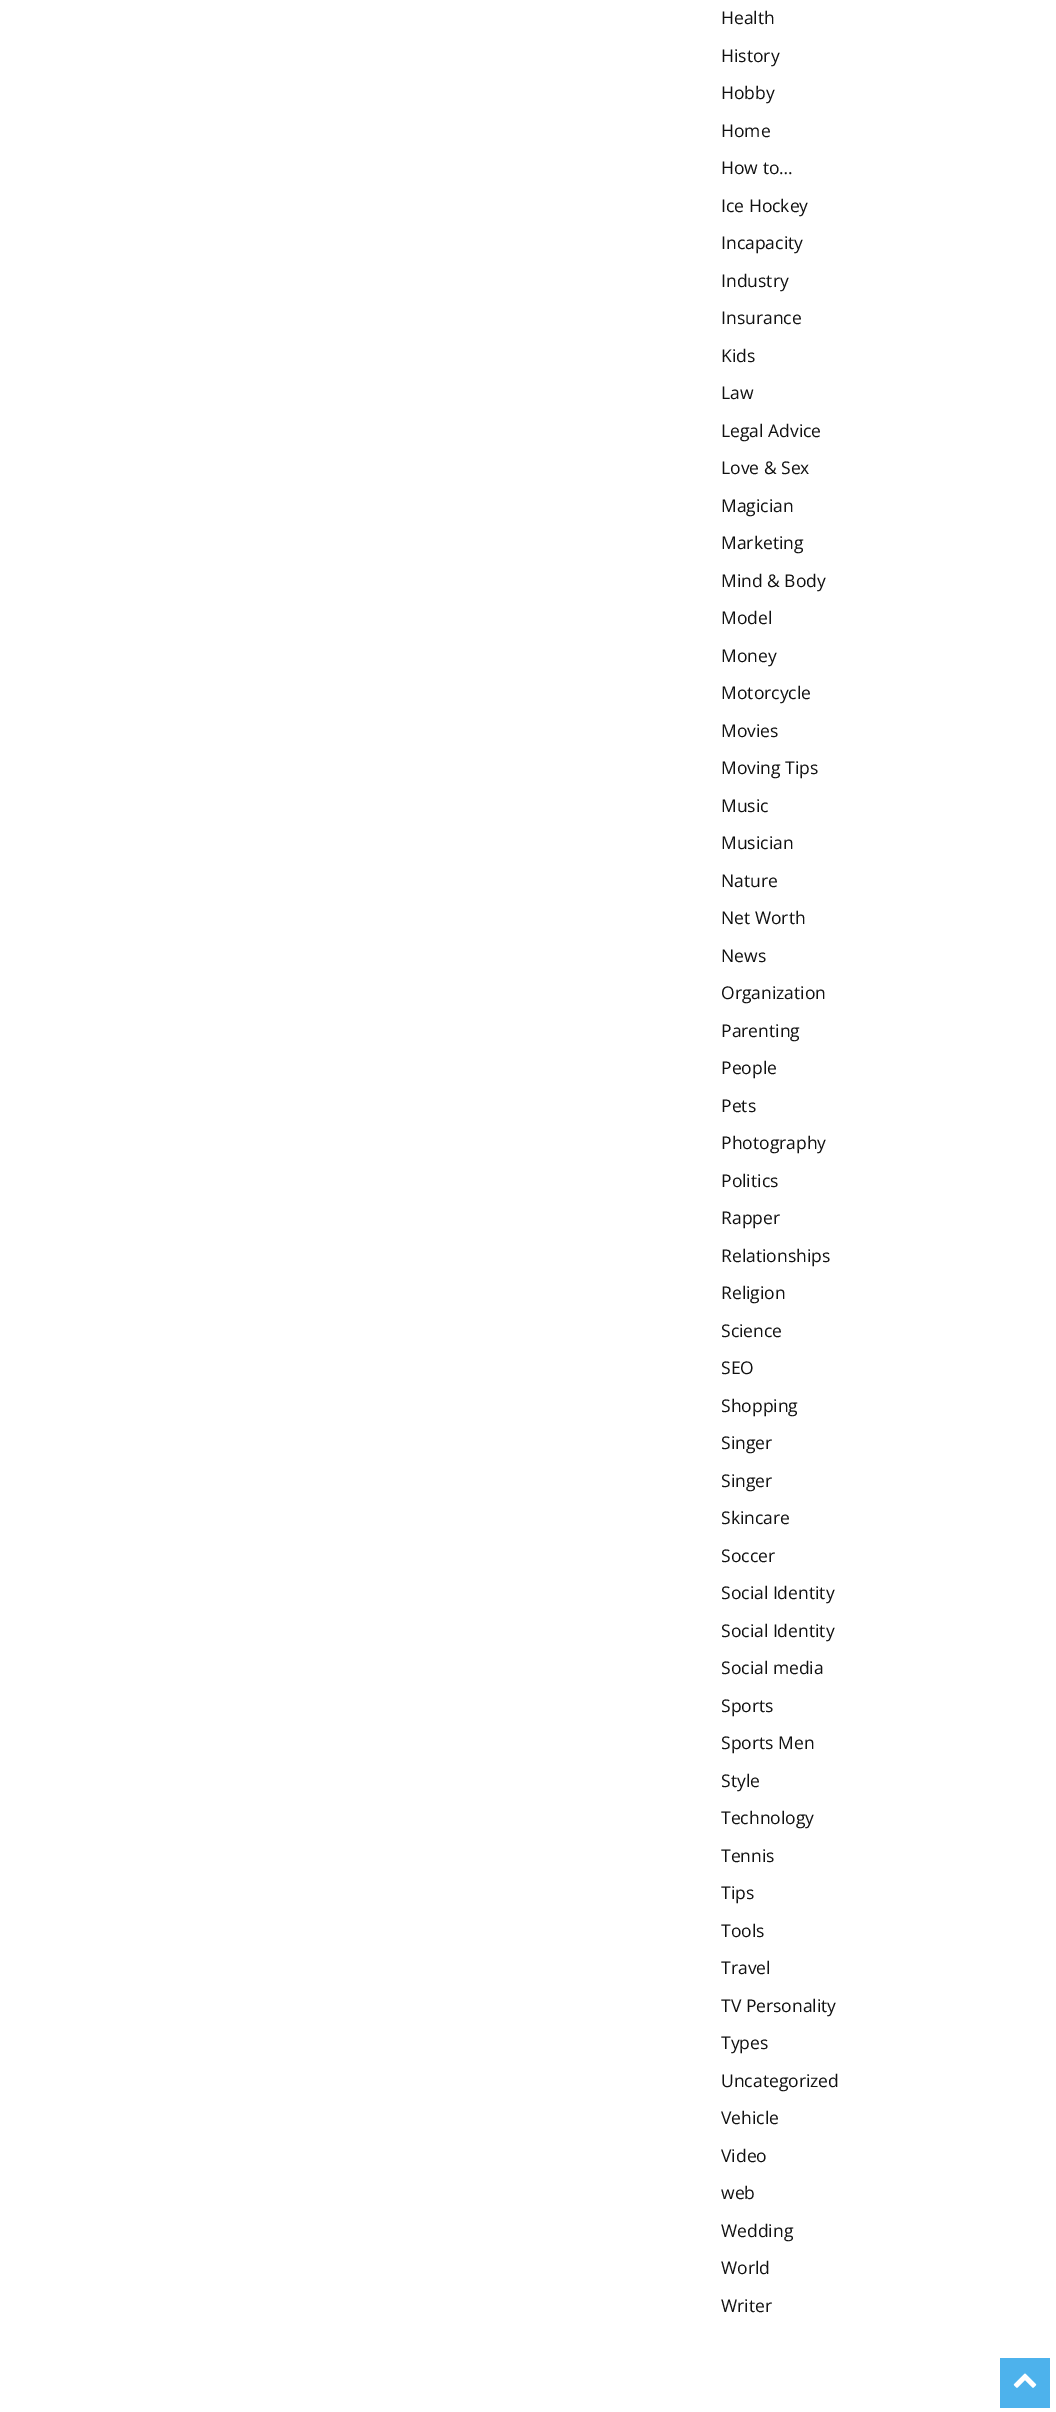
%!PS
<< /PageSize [1056 2412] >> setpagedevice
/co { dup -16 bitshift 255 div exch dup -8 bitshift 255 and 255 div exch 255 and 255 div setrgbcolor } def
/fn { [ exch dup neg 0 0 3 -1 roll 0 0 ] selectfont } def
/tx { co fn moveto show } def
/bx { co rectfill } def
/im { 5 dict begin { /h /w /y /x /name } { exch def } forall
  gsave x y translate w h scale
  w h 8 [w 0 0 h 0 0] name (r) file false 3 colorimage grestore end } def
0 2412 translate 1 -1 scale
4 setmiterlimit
0 0 1056 2412 16#FFFFFF bx
1000 2358 50 50 16#4DB2EC bx
(media/1.raw) 1013 2373 24 15 im
(Health) 721 24 /OpenSans-Regular 17.5 16#111111 tx
(History) 721 62 /OpenSans-Regular 17.5 16#111111 tx
(Hobby) 721 99 /OpenSans-Regular 17.5 16#111111 tx
(Home) 721 137 /OpenSans-Regular 17.5 16#111111 tx
(How to…) 721 174 /OpenSans-Regular 17.5 16#111111 tx
(Ice Hockey) 721 212 /OpenSans-Regular 17.5 16#111111 tx
(Incapacity) 721 249 /OpenSans-Regular 17.5 16#111111 tx
(Industry) 721 287 /OpenSans-Regular 17.5 16#111111 tx
(Insurance) 721 324 /OpenSans-Regular 17.5 16#111111 tx
(Kids) 721 362 /OpenSans-Regular 17.5 16#111111 tx
(Law) 721 399 /OpenSans-Regular 17.5 16#111111 tx
(Legal Advice) 721 437 /OpenSans-Regular 17.5 16#111111 tx
(Love & Sex) 721 474 /OpenSans-Regular 17.5 16#111111 tx
(Magician) 721 512 /OpenSans-Regular 17.5 16#111111 tx
(Marketing) 721 549 /OpenSans-Regular 17.5 16#111111 tx
(Mind & Body) 721 587 /OpenSans-Regular 17.5 16#111111 tx
(Model) 721 624 /OpenSans-Regular 17.5 16#111111 tx
(Money) 721 662 /OpenSans-Regular 17.5 16#111111 tx
(Motorcycle) 721 699 /OpenSans-Regular 17.5 16#111111 tx
(Movies) 721 737 /OpenSans-Regular 17.5 16#111111 tx
(Moving Tips) 721 774 /OpenSans-Regular 17.5 16#111111 tx
(Music) 721 812 /OpenSans-Regular 17.5 16#111111 tx
(Musician) 721 849 /OpenSans-Regular 17.5 16#111111 tx
(Nature) 721 887 /OpenSans-Regular 17.5 16#111111 tx
(Net Worth) 721 924 /OpenSans-Regular 17.5 16#111111 tx
(News) 721 962 /OpenSans-Regular 17.5 16#111111 tx
(Organization) 721 999 /OpenSans-Regular 17.5 16#111111 tx
(Parenting) 721 1037 /OpenSans-Regular 17.5 16#111111 tx
(People) 721 1074 /OpenSans-Regular 17.5 16#111111 tx
(Pets) 721 1112 /OpenSans-Regular 17.5 16#111111 tx
(Photography) 721 1149 /OpenSans-Regular 17.5 16#111111 tx
(Politics) 721 1187 /OpenSans-Regular 17.5 16#111111 tx
(Rapper) 721 1224 /OpenSans-Regular 17.5 16#111111 tx
(Relationships) 721 1262 /OpenSans-Regular 17.5 16#111111 tx
(Religion) 721 1299 /OpenSans-Regular 17.5 16#111111 tx
(Science) 721 1337 /OpenSans-Regular 17.5 16#111111 tx
(SEO) 721 1374 /OpenSans-Regular 17.5 16#111111 tx
(Shopping) 721 1412 /OpenSans-Regular 17.5 16#111111 tx
(Singer) 721 1449 /OpenSans-Regular 17.5 16#111111 tx
(Singer) 721 1487 /OpenSans-Regular 17.5 16#111111 tx
(Skincare) 721 1524 /OpenSans-Regular 17.5 16#111111 tx
(Soccer) 721 1562 /OpenSans-Regular 17.5 16#111111 tx
(Social Identity) 721 1599 /OpenSans-Regular 17.5 16#111111 tx
(Social Identity) 721 1637 /OpenSans-Regular 17.5 16#111111 tx
(Social media) 721 1674 /OpenSans-Regular 17.5 16#111111 tx
(Sports) 721 1712 /OpenSans-Regular 17.5 16#111111 tx
(Sports Men) 721 1749 /OpenSans-Regular 17.5 16#111111 tx
(Style) 721 1787 /OpenSans-Regular 17.5 16#111111 tx
(Technology) 721 1824 /OpenSans-Regular 17.5 16#111111 tx
(Tennis) 721 1862 /OpenSans-Regular 17.5 16#111111 tx
(Tips) 721 1899 /OpenSans-Regular 17.5 16#111111 tx
(Tools) 721 1937 /OpenSans-Regular 17.5 16#111111 tx
(Travel) 721 1974 /OpenSans-Regular 17.5 16#111111 tx
(TV Personality) 721 2012 /OpenSans-Regular 17.5 16#111111 tx
(Types) 721 2049 /OpenSans-Regular 17.5 16#111111 tx
(Uncategorized) 721 2087 /OpenSans-Regular 17.5 16#111111 tx
(Vehicle) 721 2124 /OpenSans-Regular 17.5 16#111111 tx
(Video) 721 2162 /OpenSans-Regular 17.5 16#111111 tx
(web) 721 2199 /OpenSans-Regular 17.5 16#111111 tx
(Wedding) 721 2237 /OpenSans-Regular 17.5 16#111111 tx
(World) 721 2274 /OpenSans-Regular 17.5 16#111111 tx
(Writer) 721 2312 /OpenSans-Regular 17.5 16#111111 tx
showpage
